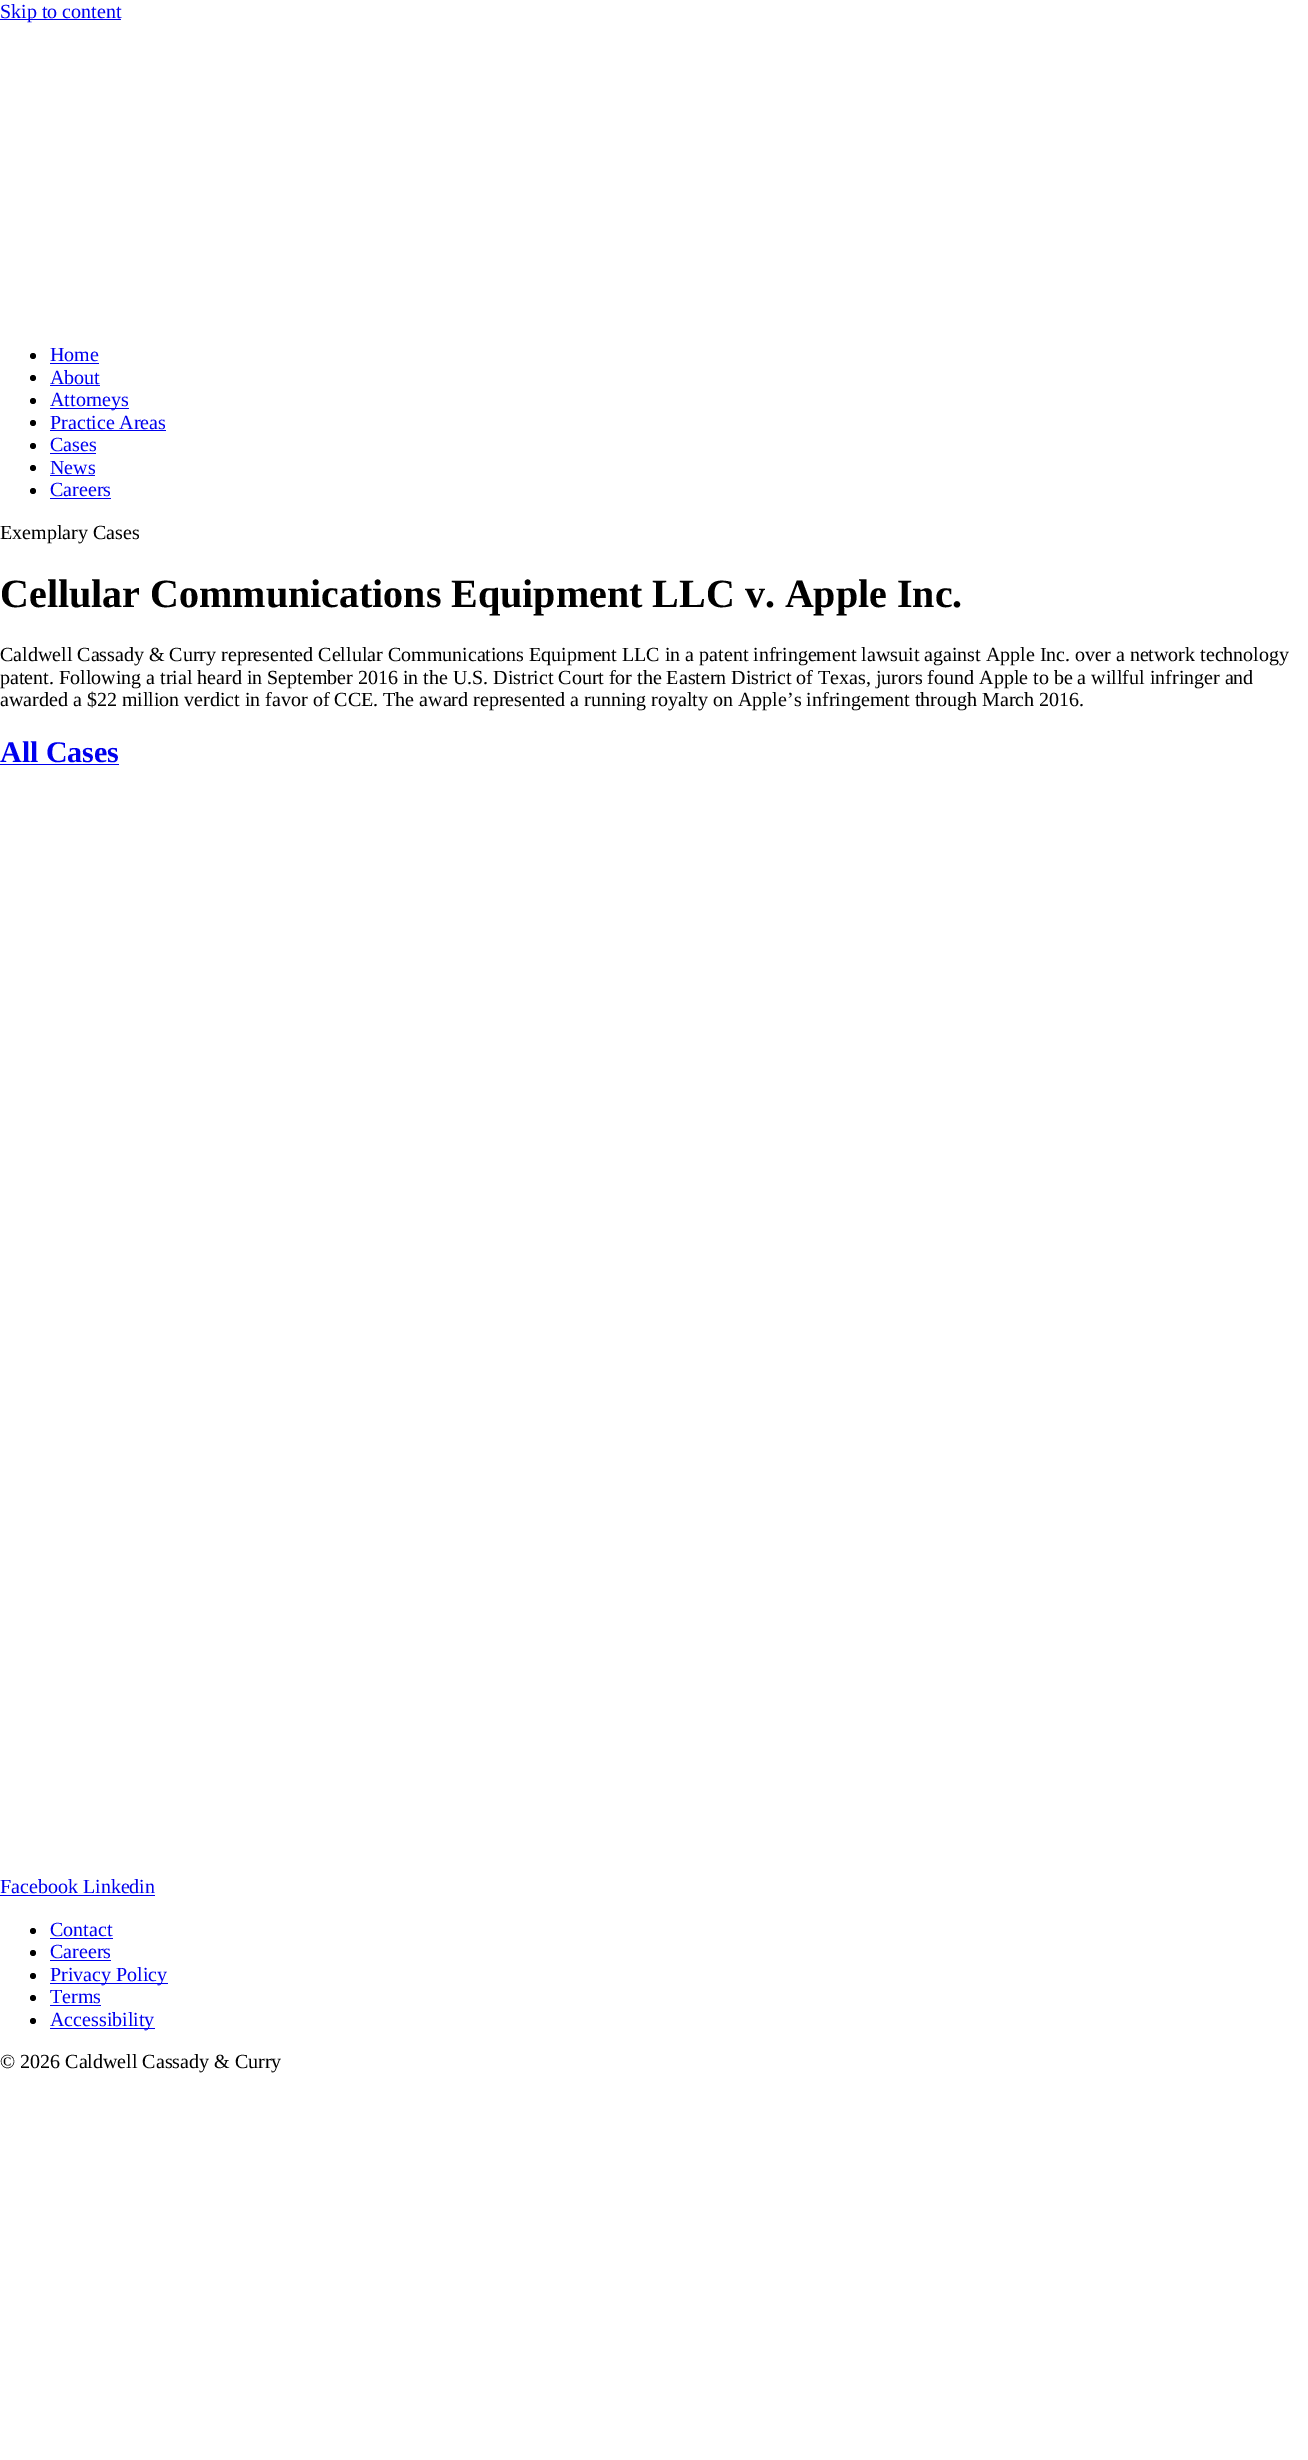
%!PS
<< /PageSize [1308 2460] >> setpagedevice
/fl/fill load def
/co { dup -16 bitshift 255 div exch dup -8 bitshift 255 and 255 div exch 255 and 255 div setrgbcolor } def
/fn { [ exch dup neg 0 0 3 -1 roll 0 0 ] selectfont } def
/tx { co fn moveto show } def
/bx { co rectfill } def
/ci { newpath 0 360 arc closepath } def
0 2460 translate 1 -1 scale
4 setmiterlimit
0 0 1308 2460 16#FFFFFF bx
0 19 121 1 16#0000EE bx
16#000000 co
33 356 3 ci fl
50 363 49 1 16#0000EE bx
16#000000 co
33 378 3 ci fl
50 385 50 1 16#0000EE bx
16#000000 co
33 401 3 ci fl
50 408 79 1 16#0000EE bx
16#000000 co
33 423 3 ci fl
50 430 116 1 16#0000EE bx
16#000000 co
33 446 3 ci fl
50 453 46 1 16#0000EE bx
16#000000 co
33 468 3 ci fl
50 475 45 1 16#0000EE bx
16#000000 co
33 491 3 ci fl
50 498 61 1 16#0000EE bx
0 764 119 1 16#0000EE bx
0 1895 155 1 16#0000EE bx
16#000000 co
33 1931 3 ci fl
50 1938 63 1 16#0000EE bx
16#000000 co
33 1953 3 ci fl
50 1960 61 1 16#0000EE bx
16#000000 co
33 1976 3 ci fl
50 1983 118 1 16#0000EE bx
16#000000 co
33 1998 3 ci fl
50 2005 51 1 16#0000EE bx
16#000000 co
33 2021 3 ci fl
50 2028 105 1 16#0000EE bx
(Skip to content) 0 18 /LiberationSerif-Regular 20 16#0000EE tx
(Home) 50 361 /LiberationSerif-Regular 20 16#0000EE tx
(About) 50 384 /LiberationSerif-Regular 20 16#0000EE tx
(Attorneys) 50 406 /LiberationSerif-Regular 20 16#0000EE tx
(Practice Areas) 50 429 /LiberationSerif-Regular 20 16#0000EE tx
(Cases) 50 451 /LiberationSerif-Regular 20 16#0000EE tx
(News) 50 474 /LiberationSerif-Regular 20 16#0000EE tx
(Careers) 50 496 /LiberationSerif-Regular 20 16#0000EE tx
(Exemplary Cases) 0 539 /LiberationSerif-Regular 20 16#000000 tx
(Cellular Communications Equipment LLC v. Apple Inc.) 0 607 /LiberationSerif-Bold 40 16#000000 tx
(Caldwell Cassady & Curry represented Cellular Communications Equipment LLC in a patent infringement lawsuit against Apple Inc. over a network technology) 0 661 /LiberationSerif-Regular 20 16#000000 tx
(patent. Following a trial heard in September 2016 in the U.S. District Court for the Eastern District of Texas, jurors found Apple to be a willful infringer and) 0 684 /LiberationSerif-Regular 20 16#000000 tx
(awarded a $22 million verdict in favor of CCE. The award represented a running royalty on Apple’s infringement through March 2016.) 0 706 /LiberationSerif-Regular 20 16#000000 tx
(All Cases) 0 762 /LiberationSerif-Bold 30 16#0000EE tx
(Facebook Linkedin) 0 1893 /LiberationSerif-Regular 20 16#0000EE tx
(Contact) 50 1936 /LiberationSerif-Regular 20 16#0000EE tx
(Careers) 50 1958 /LiberationSerif-Regular 20 16#0000EE tx
(Privacy Policy) 50 1981 /LiberationSerif-Regular 20 16#0000EE tx
(Terms) 50 2003 /LiberationSerif-Regular 20 16#0000EE tx
(Accessibility) 50 2026 /LiberationSerif-Regular 20 16#0000EE tx
(© 2026 Caldwell Cassady & Curry) 0 2068 /LiberationSerif-Regular 20 16#000000 tx
showpage
